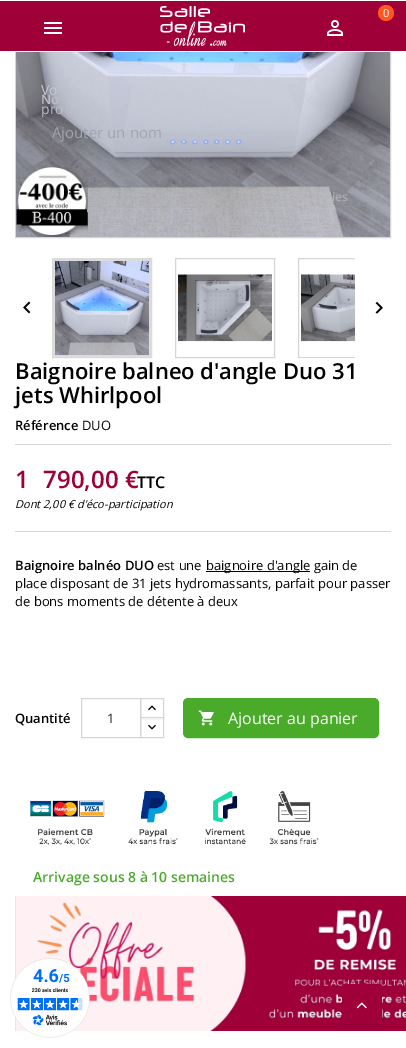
%!PS
<< /PageSize [406 1048] /PageUsesTransparency true >> setpagedevice
/fl/fill load def
/st/stroke load def
/gs/gsave load def
/gr/grestore load def
/lw/setlinewidth load def
/co { dup -16 bitshift 255 div exch dup -8 bitshift 255 and 255 div exch 255 and 255 div setrgbcolor } def
/fn { [ exch dup neg 0 0 3 -1 roll 0 0 ] selectfont } def
/tx { co fn moveto show } def
/bx { co rectfill } def
/al { dup .setfillconstantalpha .setstrokeconstantalpha } def
/ci { newpath 0 360 arc closepath } def
/rr { 5 dict begin { /r /h /w /y /x } { exch def } forall
  x r add y moveto x w add y 2 copy h add r arct x w add y h add x 1 index r arct
  x y h add x y r arct x y 2 copy exch w add exch r arct closepath end } def
/sh { 12 dict begin { /a /b /q /h /w /y /x } { exch def } forall gsave /was 0 def
  9 -2 -9 { dup b mul 4 div /e exch def 1 sub .425 mul 2.718 exch exp 1 add a .99 .min exch div /now exch def
    1 1 now sub 1 was sub div sub al /was now def
    w h .min e 2 mul add 0 gt { x e sub y e sub w e 2 mul add h e 2 mul add
      q e add b .6 mul add w h .min 2 div e add .min 0 .max rr fill } if } for grestore end } def
/im { 5 dict begin { /h /w /y /x /name } { exch def } forall
  gsave x y translate w h scale
  w h 8 [w 0 0 h 0 0] name (r) file false 3 colorimage grestore end } def
0 .pushpdf14devicefilter
0 1048 translate 1 -1 scale
4 setmiterlimit
0 0 406 1048 16#FFFFFF bx
16#D6D4D4 co
15.5 -.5 375 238 rectstroke
0 1 406 50 16#9F0038 bx
15 0 376 1 16#FFFFFF bx
15 51 376 1 16#FFFFFF bx
(media/1.raw) 160 6 85 40 im
16#FF5722 co
386 13 8 ci fl
(media/2.raw) 44 22 18 12 im
(media/3.raw) 327 20 16 16 im
(media/16.raw) 15 896 391 135 im
16#000000 co
342 985 40 40 2 .5 .1 sh
16#9F0038 co
342 984 40 40 2 rr fl
(media/4.raw) 356 1002 11 7 im
(media/5.raw) 16 52 374 185 im
(media/6.raw) 16 166 72 71 im
16#DBDBDB co
3 lw
53.5 259.5 97 97 rectstroke
16#D6D4D4 co
1 lw
175.5 258.5 99 99 rectstroke
gs
52 258 303 100 rectclip
298.5 258.5 99 99 rectstroke
gr
(media/7.raw) 55 261 94 94 im
(media/8.raw) 178 274 94 68 im
(media/9.raw) 301 274 54 68 im
(media/10.raw) 23 301 8 13 im
(media/11.raw) 375 301 8 13 im
15 444 376 1 16#D6D4D4 bx
15 531 376 1 16#D6D4D4 bx
206 571 104 1 16#000000 bx
16#D6D4D4 co
140.5 698.5 23 20 rectstroke
141 718 22 1 16#FFFFFF bx
16#D6D4D4 co
140.5 717.5 23 20 rectstroke
81.5 698.5 59 39 rectstroke
(media/12.raw) 148 705 8 6 im
(media/13.raw) 148 724 8 6 im
16#4AAB2B co
183.5 698.5 195 39 4.5 rr gs fl gr
st
(media/14.raw) 198 710 16 16 im
(media/15.raw) 30 791 289 54 im
(media/17.raw) 10 958 80 80 im
(0) 383 17 /OpenSans-Regular 11 16#FFFFFF tx
(Vo) 41 95 /OpenSans-Regular 14 16#C4C7D4 tx
(pro) 41 114 /OpenSans-Regular 14 16#BBBECA tx
(No) 41 104 /OpenSans-SemiBold 13 16#BBBECA tx
(Ajouter un nom) 52 138 /OpenSans-Regular 15 16#A1A4AE tx
(ies) 332 201 /OpenSans-SemiBold 12 16#ACACB1 tx
(Baignoire balneo d'angle Duo 31) 15 379 /OpenSans-SemiBold 22 16#000000 tx
(jets Whirlpool) 15 403 /OpenSans-SemiBold 22 16#000000 tx
(Référence) 15 430 /OpenSans-SemiBold 13 16#000000 tx
(DUO) 82 430 /OpenSans-Regular 13 16#000000 tx
(1 790,00 €) 15 488 /OpenSans-SemiBold 24 16#9F0038 tx
(TTC) 137 488 /OpenSans-SemiBold 16 16#000000 tx
(Dont 2,00 € d'éco-participation) 15 508 /OpenSans-Italic 11 16#000000 tx
(Baignoire balnéo DUO) 15 570 /OpenSans-SemiBold 13 16#000000 tx
(est une) 157 570 /OpenSans-Regular 13 16#000000 tx
(baignoire d'angle gain de) 206 570 /OpenSans-Regular 13 16#000000 tx
(place disposant de 31 jets hydromassants, parfait pour passer) 15 588 /OpenSans-Regular 13 16#000000 tx
(de bons moments de détente à deux) 15 606 /OpenSans-Regular 13 16#000000 tx
(Quantité) 15 723 /OpenSans-SemiBold 13 16#000000 tx
(1) 107 723 /OpenSans-Regular 13 16#232323 tx
(Ajouter au panier) 228 724 /OpenSans-Regular 16 16#FFFFFF tx
(Arrivage sous 8 à 10 semaines) 33 882 /OpenSans-SemiBold 14 16#4AAB2B tx
.poppdf14devicefilter showpage
